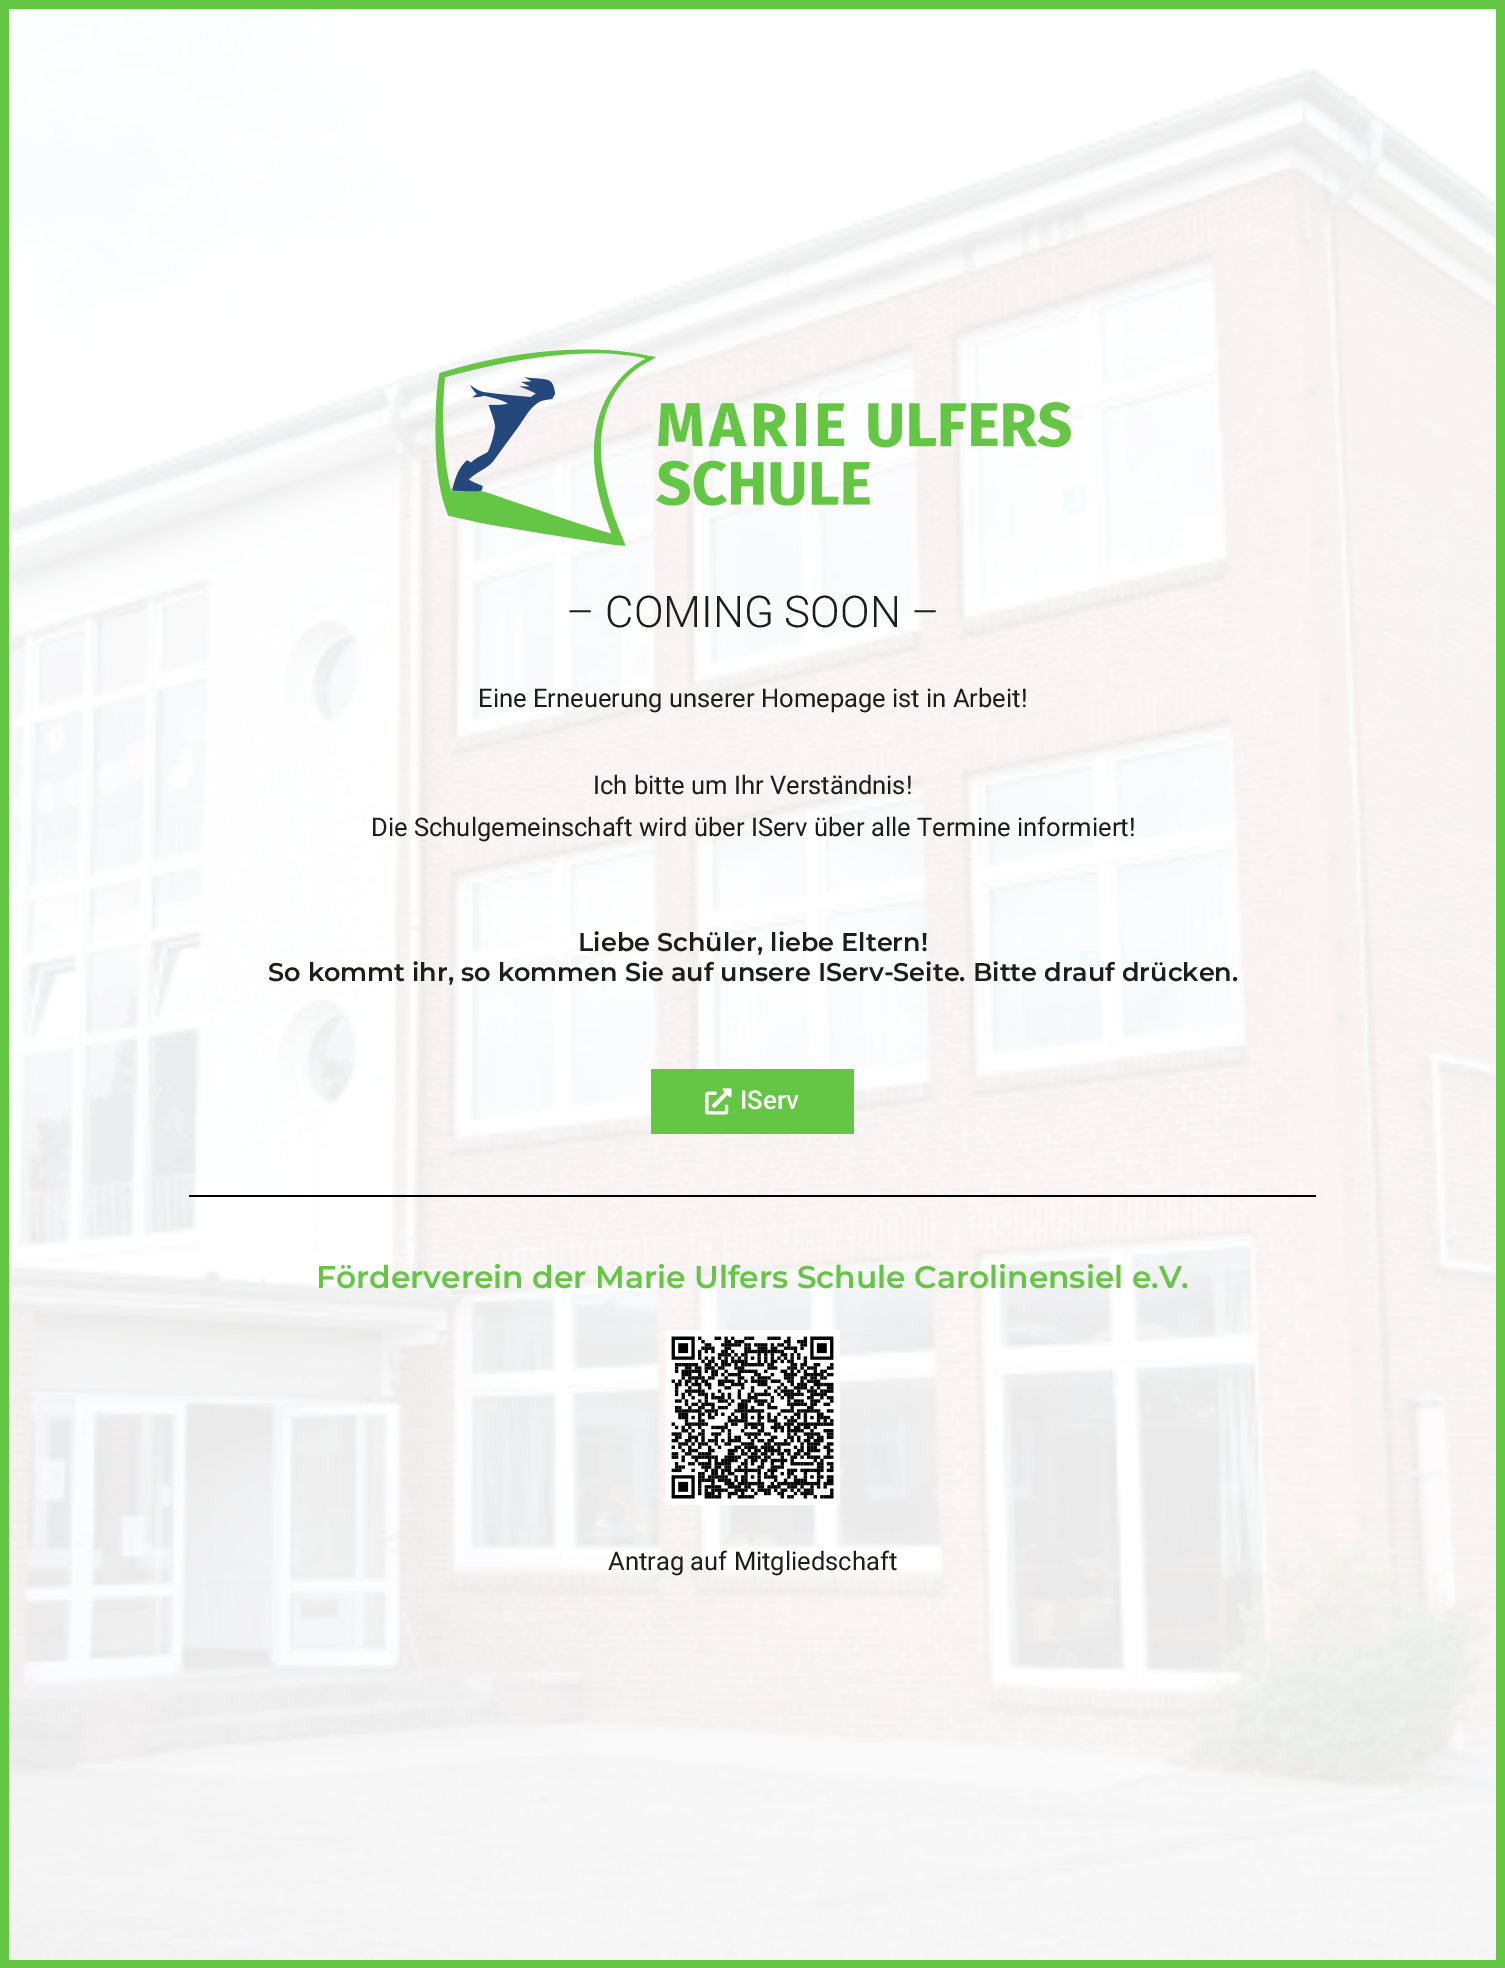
%!PS
<< /PageSize [1505 1968] >> setpagedevice
/lw/setlinewidth load def
/co { dup -16 bitshift 255 div exch dup -8 bitshift 255 and 255 div exch 255 and 255 div setrgbcolor } def
/fn { [ exch dup neg 0 0 3 -1 roll 0 0 ] selectfont } def
/tx { co fn moveto show } def
/bx { co rectfill } def
/im { 5 dict begin { /h /w /y /x /name } { exch def } forall
  gsave x y translate w h scale
  w h 8 [w 0 0 h 0 0] name (r) file false 3 colorimage grestore end } def
0 1968 translate 1 -1 scale
4 setmiterlimit
0 0 1505 1968 16#FFFFFF bx
(media/1.raw) 9 9 1487 1951 im
16#65C544 co
9 lw
4.5 4.5 1496 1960 rectstroke
(media/2.raw) 435 349 636 197 im
651 1069 203 65 16#65C544 bx
(media/3.raw) 705 1088 27 27 im
189 1195 1127 2 16#000000 bx
(media/4.raw) 665 1330 175 175 im
(– COMING SOON –) 566 627 /Roboto-Light 43.75 16#1D1D1B tx
(Eine Erneuerung unserer Homepage ist in Arbeit!) 478 707 /Roboto-Regular 25.55 16#1D1D1B tx
(Ich bitte um Ihr Verständnis!) 593 794 /Roboto-Regular 25.55 16#1D1D1B tx
(Die Schulgemeinschaft wird über IServ über alle Termine informiert!) 371 836 /Roboto-Regular 25.55 16#1D1D1B tx
(Liebe Schüler, liebe Eltern!) 578 951 /Montserrat-Thin 25.55 16#1D1D1B tx
(So kommt ihr, so kommen Sie auf unsere IServ-Seite. Bitte drauf drücken.) 268 981 /Montserrat-Thin 25.55 16#1D1D1B tx
(IServ) 740 1109 /Roboto-Medium 26 16#FFFFFF tx
(Förderverein der Marie Ulfers Schule Carolinensiel e.V.) 316 1288 /Montserrat-Thin 31.25 16#65C544 tx
(Antrag auf Mitgliedschaft) 608 1570 /Roboto-Regular 25.55 16#1D1D1B tx
showpage
